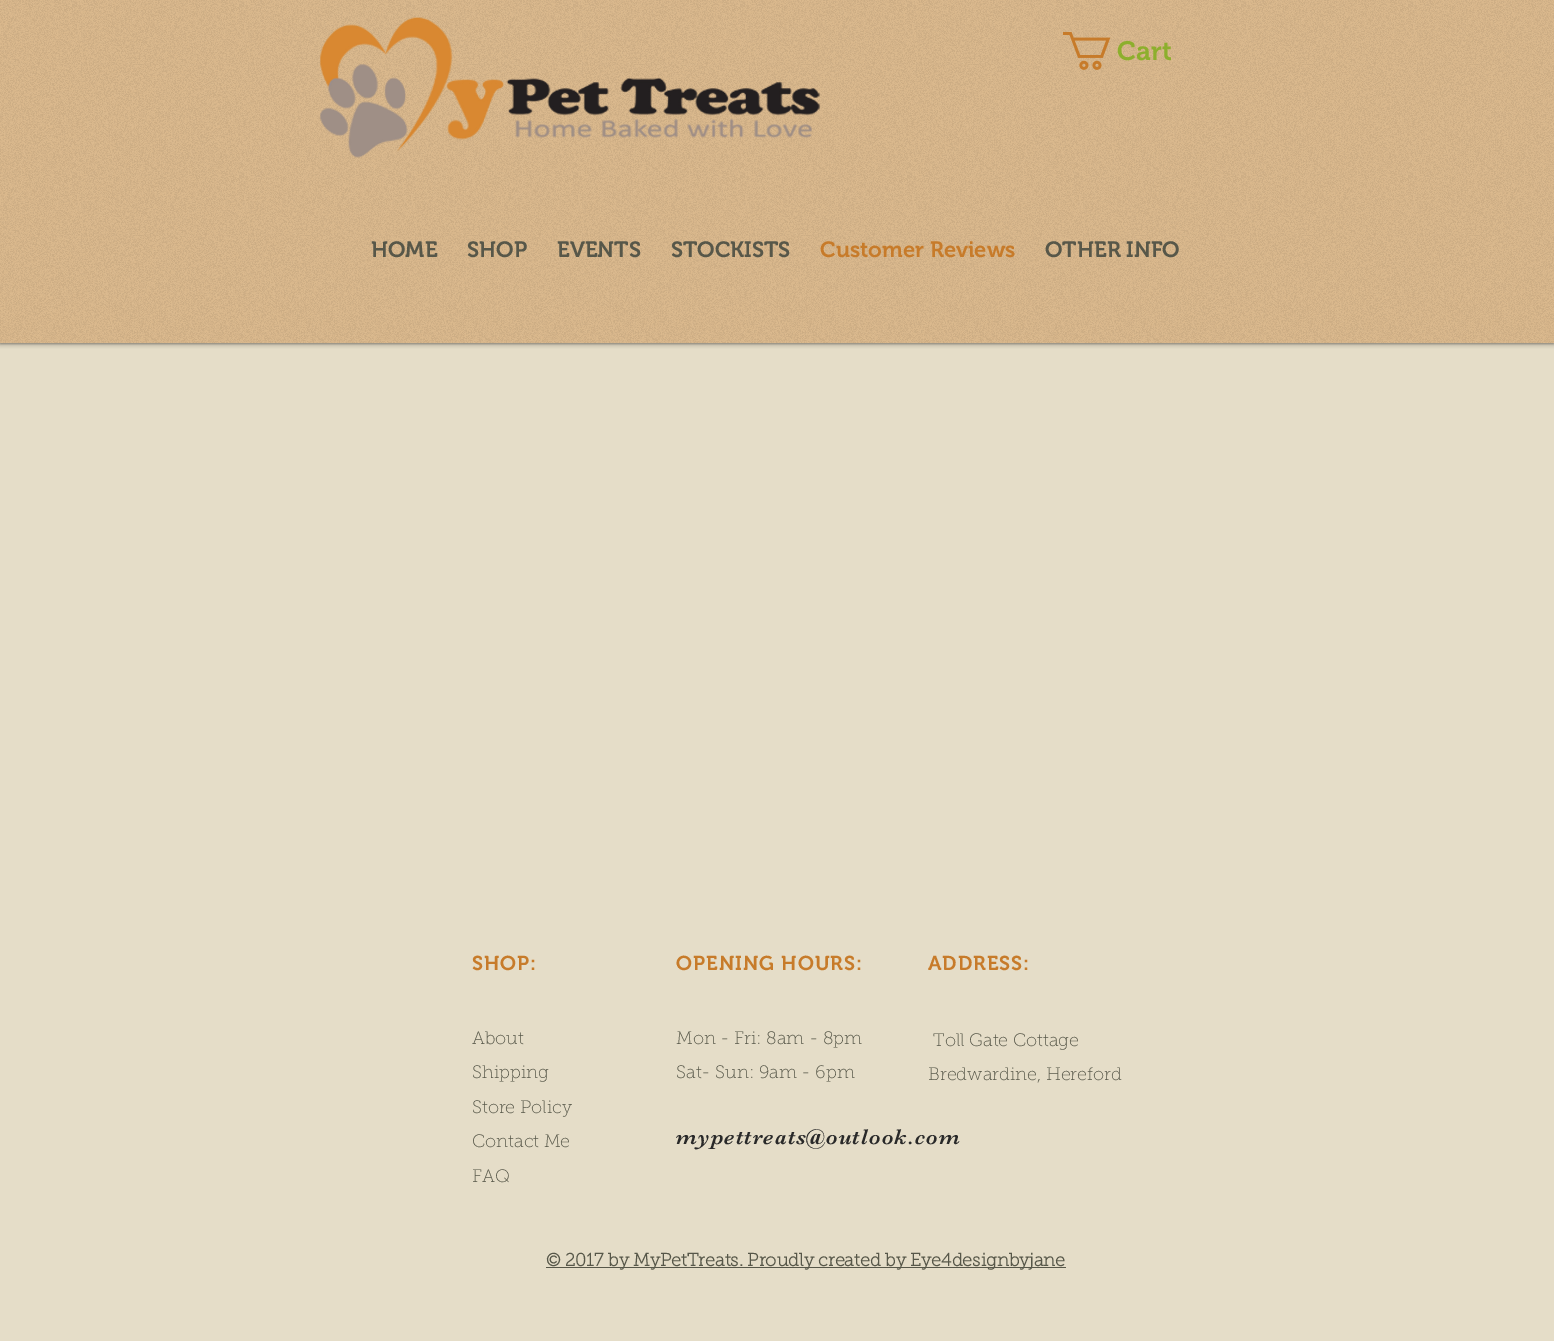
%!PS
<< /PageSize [1554 1341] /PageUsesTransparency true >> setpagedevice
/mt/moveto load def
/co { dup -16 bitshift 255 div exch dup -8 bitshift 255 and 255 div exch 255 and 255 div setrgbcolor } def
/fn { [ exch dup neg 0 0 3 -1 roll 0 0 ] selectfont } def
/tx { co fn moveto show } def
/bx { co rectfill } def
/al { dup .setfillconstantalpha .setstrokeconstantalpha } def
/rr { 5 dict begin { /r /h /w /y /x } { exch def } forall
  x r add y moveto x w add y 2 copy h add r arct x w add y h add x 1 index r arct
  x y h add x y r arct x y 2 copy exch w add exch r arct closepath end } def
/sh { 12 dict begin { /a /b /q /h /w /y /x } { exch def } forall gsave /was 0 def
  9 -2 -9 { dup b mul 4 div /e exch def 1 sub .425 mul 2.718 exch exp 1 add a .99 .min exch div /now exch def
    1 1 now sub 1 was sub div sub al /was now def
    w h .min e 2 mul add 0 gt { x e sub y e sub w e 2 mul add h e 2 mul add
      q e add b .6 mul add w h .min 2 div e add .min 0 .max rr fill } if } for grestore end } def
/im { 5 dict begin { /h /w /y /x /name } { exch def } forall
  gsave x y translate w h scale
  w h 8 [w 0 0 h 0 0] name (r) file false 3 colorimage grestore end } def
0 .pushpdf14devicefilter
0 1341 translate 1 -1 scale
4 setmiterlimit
0 0 1554 1341 16#E5DDC8 bx
16#000000 co
0 -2 1554 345 0 2.5 .7 sh
0 0 1554 343 16#DAB88C bx
(media/1.raw) 0 0 1554 343 im
(media/2.raw) 320 17 500 141 im
(media/3.raw) 1063 32 48 38 im
546 1267 520 1 16#575749 bx
(Cart) 1117 60 /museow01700-SemiBold 26.5 16#8DAF2D tx
(HOME) 371 257 /museow01700-SemiBold 22 16#575749 tx
(SHOP) 467 257 /museow01700-SemiBold 22 16#575749 tx
(EVENTS) 557 257 /museow01700-SemiBold 22 16#575749 tx
(STOCKISTS) 671 257 /museow01700-SemiBold 22 16#575749 tx
(Customer Reviews) 820 257 /museow01700-SemiBold 22 16#C77B2A tx
(OTHER INFO) 1045 257 /museow01700-SemiBold 22 16#575749 tx
/museow01700-SemiBold 20 fn
16#C77B2A co
472 970 mt 1 0 (SHOP:) ashow
676 970 mt 1 0 (OPENING HOURS:) ashow
928 970 mt 1 0 (ADDRESS:) ashow
(About) 472 1044 /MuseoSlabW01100-Thin 18 16#575749 tx
(Shipping) 472 1078 /MuseoSlabW01100-Thin 18 16#575749 tx
(Store Policy) 472 1113 /MuseoSlabW01100-Thin 18 16#575749 tx
(Contact Me) 472 1147 /MuseoSlabW01100-Thin 18 16#575749 tx
(FAQ) 472 1182 /MuseoSlabW01100-Thin 18 16#575749 tx
(Mon - Fri: 8am - 8pm) 676 1044 /MuseoSlabW01100-Thin 18 16#575749 tx
(Sat- Sun: 9am - 6pm) 676 1078 /MuseoSlabW01100-Thin 18 16#575749 tx
(Toll Gate Cottage) 933 1046 /MuseoSlabW01100-Thin 18 16#575749 tx
(Bredwardine, Hereford) 928 1080 /MuseoSlabW01100-Thin 18 16#575749 tx
/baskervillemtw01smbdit-Regular 22 fn
16#292929 co
676 1144 mt 1.1 0 (mypettreats@outlook.com) ashow
(© 2017 by MyPetTreats. Proudly created by Eye4designbyjane) 546 1266 /MuseoSlabW01100-Bold 18 16#575749 tx
.poppdf14devicefilter showpage
